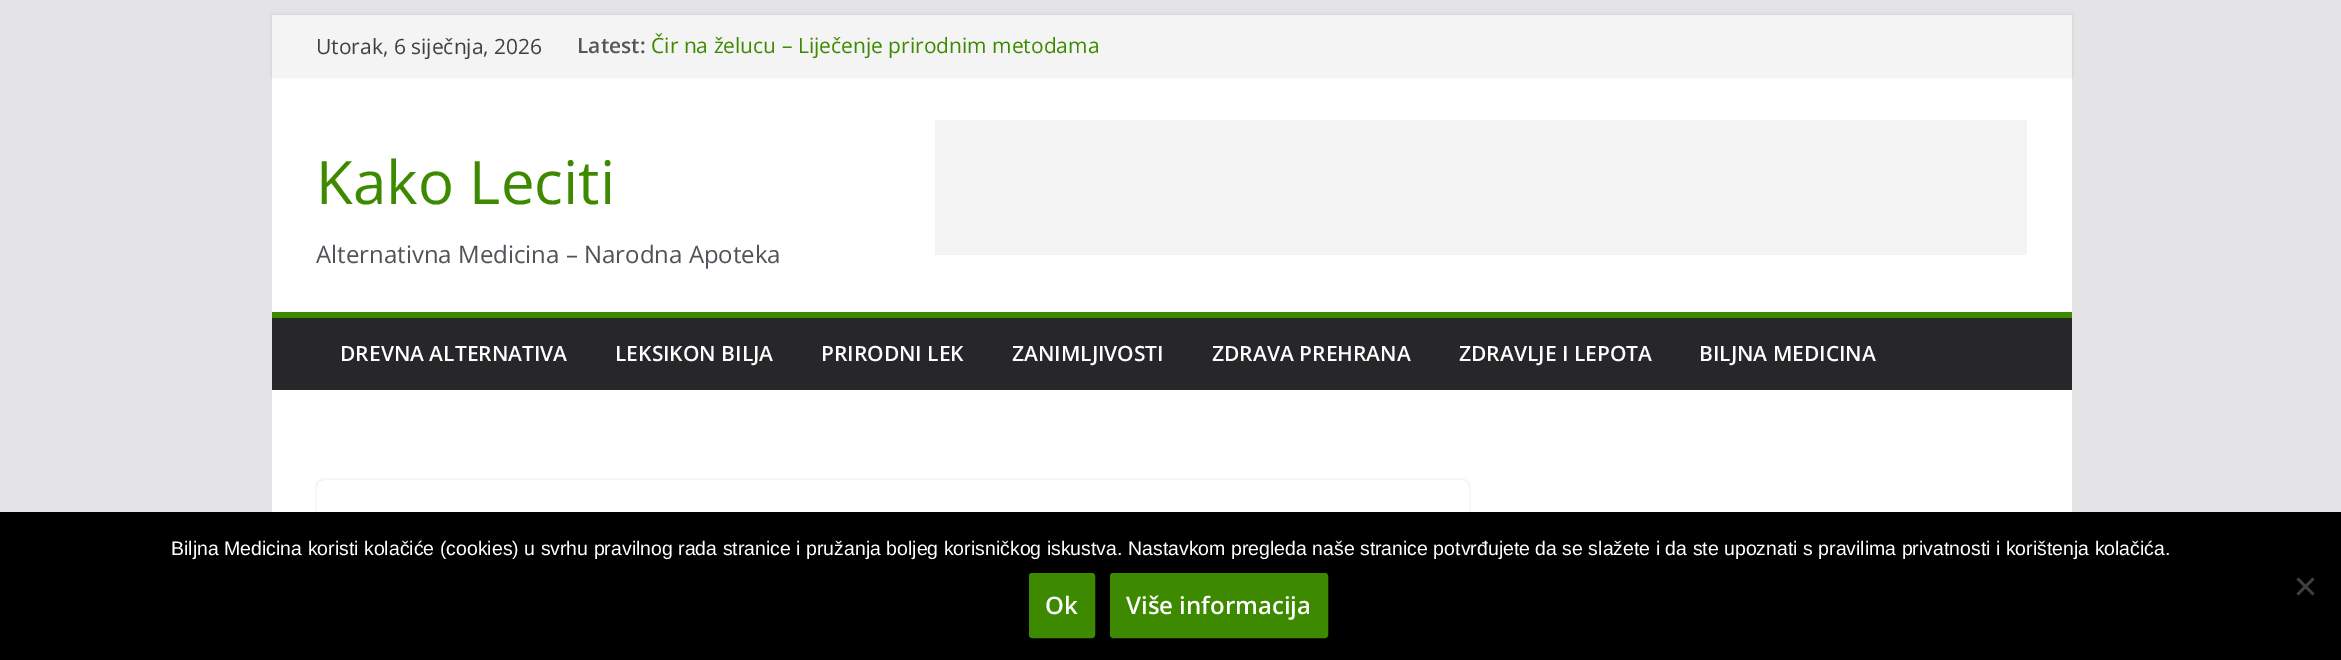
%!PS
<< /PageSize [2341 660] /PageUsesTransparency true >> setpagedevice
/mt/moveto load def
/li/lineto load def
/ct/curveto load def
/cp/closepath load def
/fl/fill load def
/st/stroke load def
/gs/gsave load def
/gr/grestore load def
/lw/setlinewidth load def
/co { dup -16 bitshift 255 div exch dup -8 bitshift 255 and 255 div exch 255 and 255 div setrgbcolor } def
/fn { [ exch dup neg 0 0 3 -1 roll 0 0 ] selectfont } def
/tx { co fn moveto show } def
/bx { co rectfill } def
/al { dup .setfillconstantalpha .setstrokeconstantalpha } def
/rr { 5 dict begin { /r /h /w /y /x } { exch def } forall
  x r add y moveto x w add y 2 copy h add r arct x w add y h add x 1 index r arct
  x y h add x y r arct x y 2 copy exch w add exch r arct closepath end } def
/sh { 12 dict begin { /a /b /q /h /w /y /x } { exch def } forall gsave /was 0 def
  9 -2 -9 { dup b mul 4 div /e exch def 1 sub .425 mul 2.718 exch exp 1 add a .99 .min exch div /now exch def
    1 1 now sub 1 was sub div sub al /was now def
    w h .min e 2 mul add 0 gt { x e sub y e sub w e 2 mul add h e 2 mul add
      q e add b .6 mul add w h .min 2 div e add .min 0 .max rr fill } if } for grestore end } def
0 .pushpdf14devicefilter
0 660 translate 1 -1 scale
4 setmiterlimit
0 0 2341 660 16#E4E4E7 bx
272 77 1800 235 16#FFFFFF bx
16#000000 co
272 15 1800 62 0 1.5 .1 sh
272 15 1800 62 16#F4F4F5 bx
935 120 1092 135 16#F4F4F5 bx
272 318 1800 72 16#27272A bx
272 312 1800 6 16#3D8900 bx
272 390 1800 122 16#FFFFFF bx
gs
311 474 mt 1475 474 li 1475 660 li 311 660 li cp 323 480 mt 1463 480 li 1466.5 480 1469 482.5 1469 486 ct 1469 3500 li 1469 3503.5 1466.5 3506 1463 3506 ct 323 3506 li 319.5 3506 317 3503.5 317 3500 ct 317 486 li 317 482.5 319.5 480 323 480 ct cp eoclip newpath
16#E4E4E7 co
317 480 1152 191 6 1.5 1 sh
gr
0 512 2341 148 16#000000 bx
16#404040 co
2312.5 577.5 mt 2314.5 579.5 li 2298.5 595.5 li 2296.5 593.5 li cp fl
2296.5 579.5 mt 2298.5 577.5 li 2314.5 593.5 li 2312.5 595.5 li cp fl
16#3D8900 co
1030 574 64 63 2 rr gs fl gr
2 lw
st
1111 574 216 63 2 rr gs fl gr
st
(Utorak, 6 siječnja, 2026) 316 54 /OpenSans-Regular 21 16#3F3F46 tx
(Latest:) 577 53 /OpenSans-SemiBold 21 16#555555 tx
(Čir na želucu – Liječenje prirodnim metodama) 651 53 /OpenSans-Regular 21 16#3D8900 tx
(Kako Leciti) 316 204 /OpenSans-Regular 60 16#3D8900 tx
(Alternativna Medicina – Narodna Apoteka) 316 263 /OpenSans-Regular 24 16#52525B tx
(DREVNA ALTERNATIVA) 340 361 /OpenSans-SemiBold 21 16#FFFFFF tx
(LEKSIKON BILJA) 615 361 /OpenSans-SemiBold 21 16#FFFFFF tx
(PRIRODNI LEK) 821 361 /OpenSans-SemiBold 21 16#FFFFFF tx
(ZANIMLJIVOSTI) 1012 361 /OpenSans-SemiBold 21 16#FFFFFF tx
(ZDRAVA PREHRANA) 1212 361 /OpenSans-SemiBold 21 16#FFFFFF tx
(ZDRAVLJE I LEPOTA) 1459 361 /OpenSans-SemiBold 21 16#FFFFFF tx
(BILJNA MEDICINA) 1699 361 /OpenSans-SemiBold 21 16#FFFFFF tx
(Biljna Medicina koristi kolačiće \(cookies\) u svrhu pravilnog rada stranice i pružanja boljeg korisničkog iskustva. Nastavkom pregleda naše stranice potvrđujete da se slažete i da ste upoznati s pravilima privatnosti i korištenja kolačića.) 171 555 /LiberationSans-Regular 19.5 16#FFFFFF tx
(Ok) 1045 614 /OpenSans-SemiBold 24 16#FFFFFF tx
(Više informacija) 1126 614 /OpenSans-SemiBold 24 16#FFFFFF tx
.poppdf14devicefilter showpage
